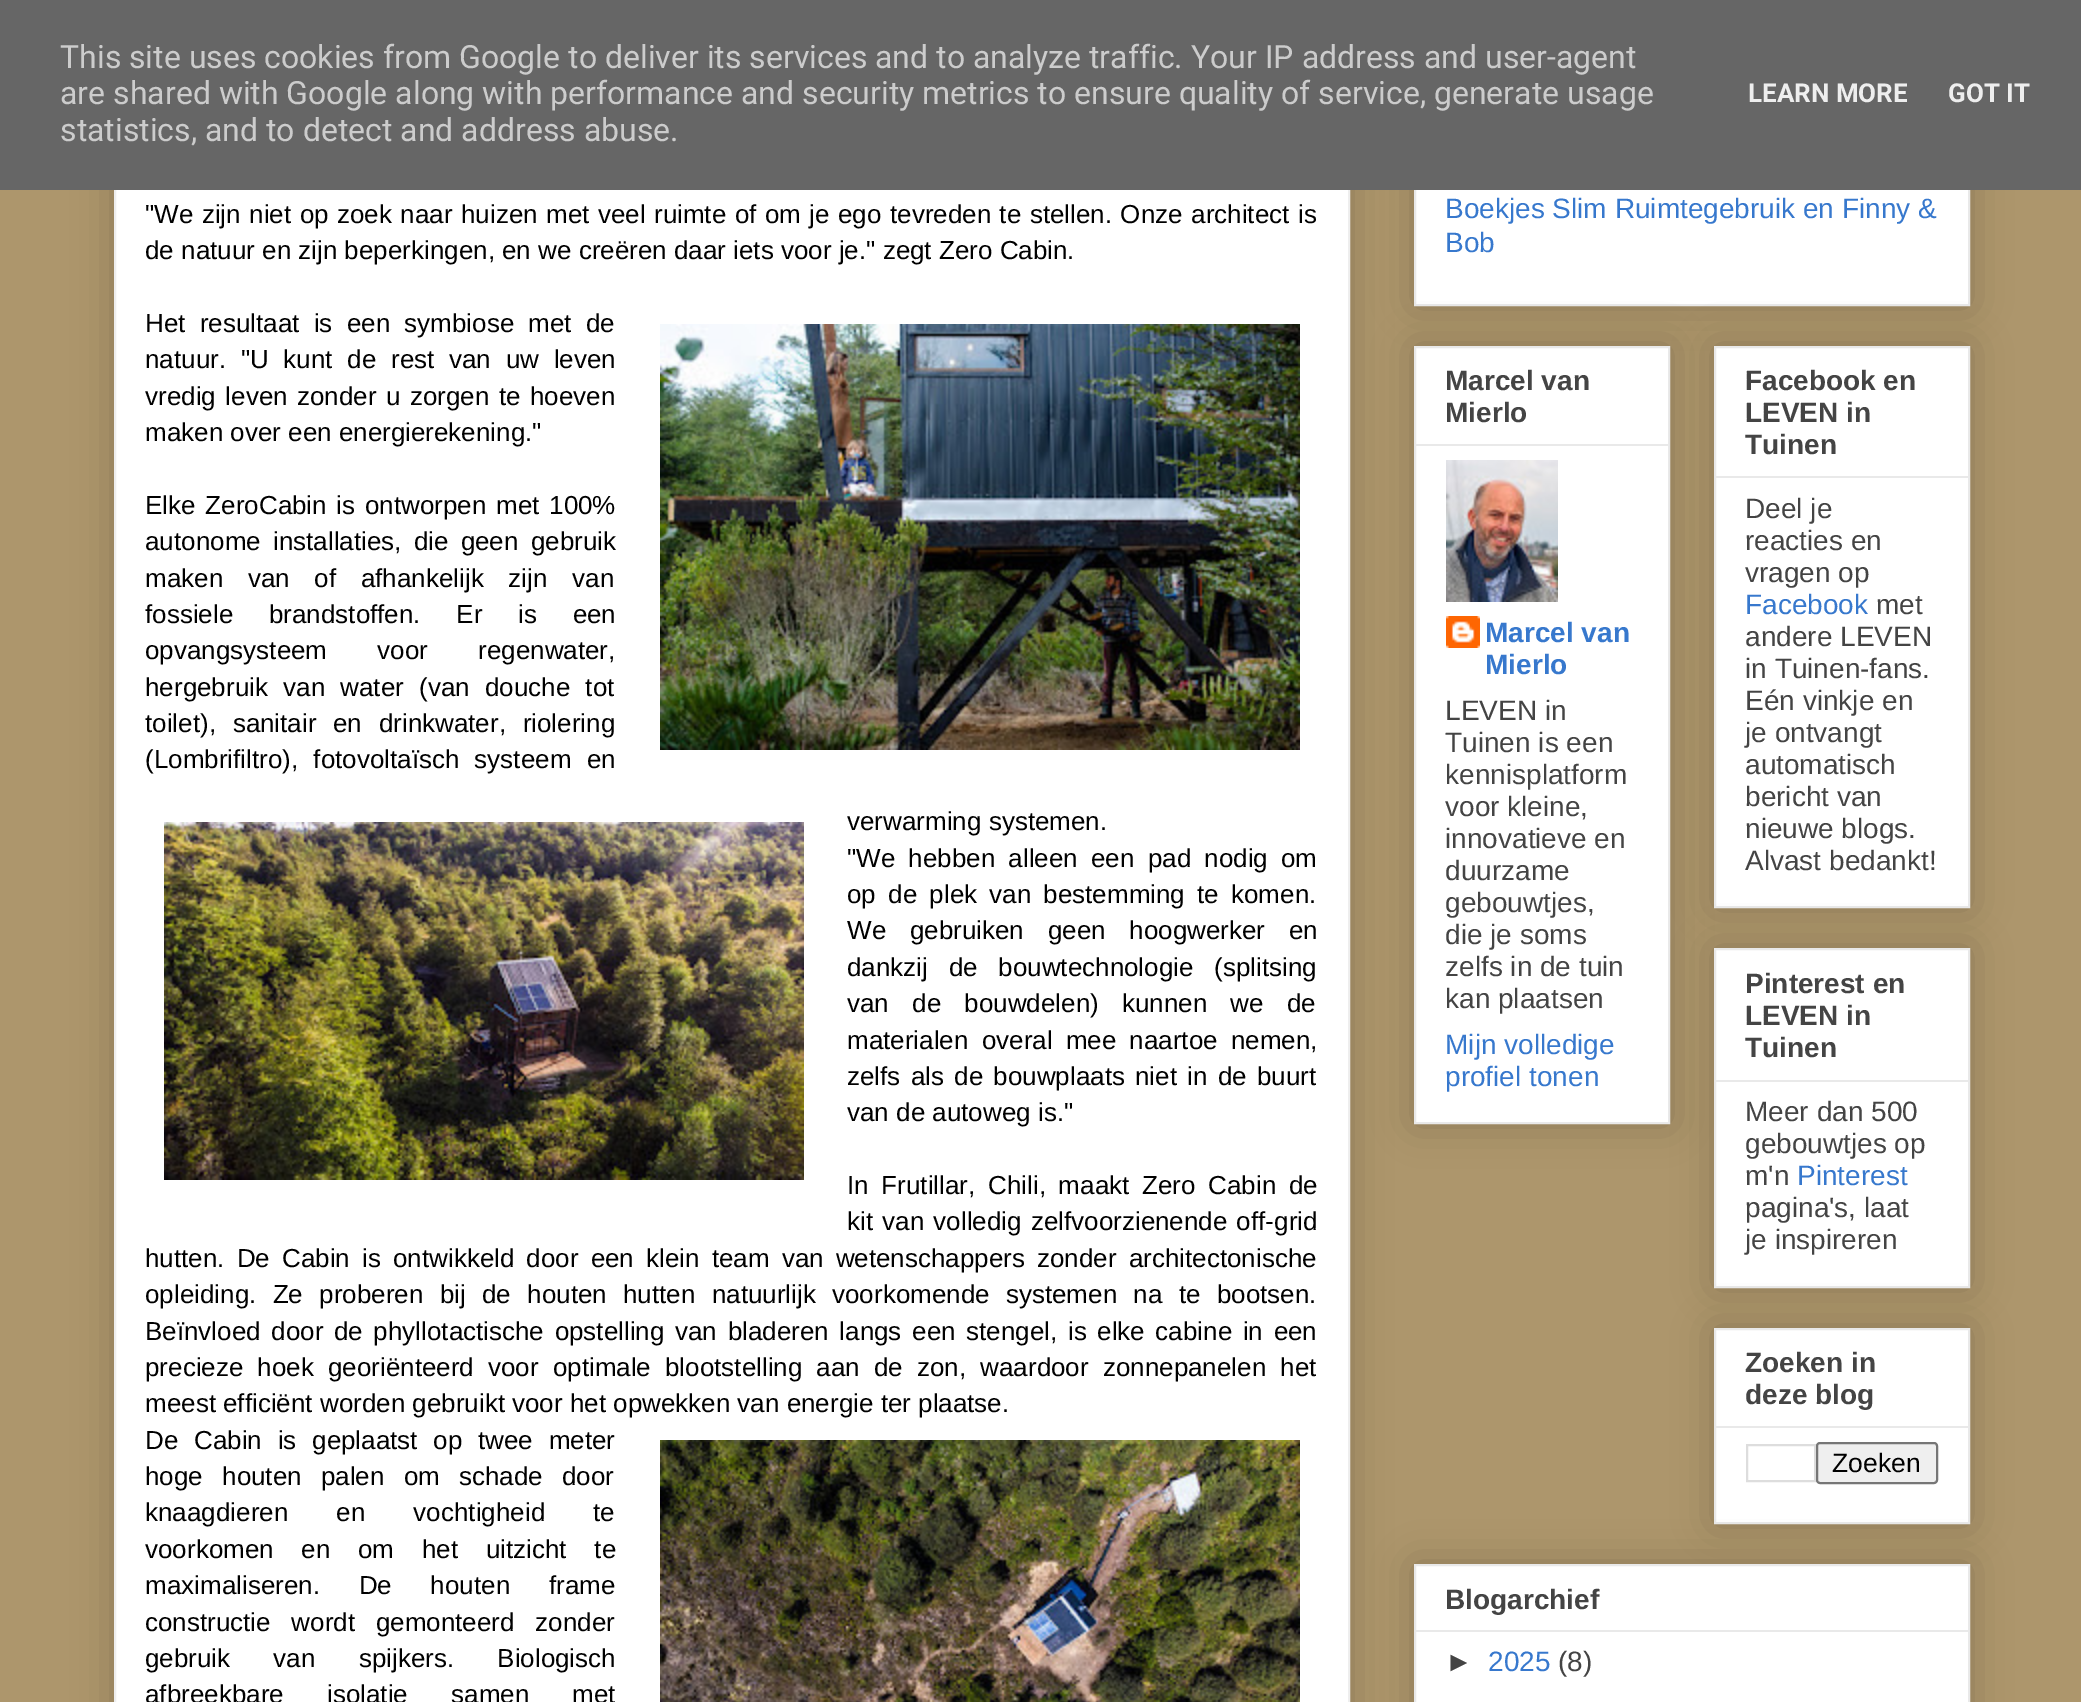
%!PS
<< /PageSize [2081 1702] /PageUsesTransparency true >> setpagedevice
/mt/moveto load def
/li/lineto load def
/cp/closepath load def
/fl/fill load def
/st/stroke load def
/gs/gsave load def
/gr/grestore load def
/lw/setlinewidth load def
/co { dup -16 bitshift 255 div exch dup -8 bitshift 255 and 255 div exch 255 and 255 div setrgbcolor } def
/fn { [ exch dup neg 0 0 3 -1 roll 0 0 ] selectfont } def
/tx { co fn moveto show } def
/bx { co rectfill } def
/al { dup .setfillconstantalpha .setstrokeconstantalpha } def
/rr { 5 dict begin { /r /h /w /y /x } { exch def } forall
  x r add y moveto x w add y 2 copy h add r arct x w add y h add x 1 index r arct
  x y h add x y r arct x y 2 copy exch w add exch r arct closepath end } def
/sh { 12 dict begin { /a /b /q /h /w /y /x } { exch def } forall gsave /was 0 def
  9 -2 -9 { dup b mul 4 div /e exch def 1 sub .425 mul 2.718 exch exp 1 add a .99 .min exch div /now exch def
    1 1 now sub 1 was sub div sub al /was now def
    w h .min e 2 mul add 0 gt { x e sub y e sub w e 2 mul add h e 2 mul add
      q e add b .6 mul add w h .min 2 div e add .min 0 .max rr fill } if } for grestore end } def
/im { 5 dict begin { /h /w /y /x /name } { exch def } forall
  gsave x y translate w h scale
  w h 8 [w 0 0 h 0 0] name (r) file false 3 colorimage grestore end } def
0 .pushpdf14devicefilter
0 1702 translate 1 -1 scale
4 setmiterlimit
0 0 2081 1702 16#AD966C bx
16#000000 co
114 14 1236 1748 0 20 .2 sh
116 190 1232 1512 16#FFFFFF bx
16#EEEEEE co
2 lw
115 15 1234 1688 rectstroke
16#000000 co
1414 14 556 292 0 20 .2 sh
1416 190 552 114 16#FFFFFF bx
16#E9E9E9 co
1415 15 554 290 rectstroke
0 0 2081 190 16#666666 bx
(media/1.raw) 660 324 640 426 im
(media/2.raw) 164 822 640 358 im
(media/3.raw) 660 1440 640 262 im
16#000000 co
1414 346 256 778 0 20 .2 sh
16#FFFFFF co
1415 347 mt 1669 347 li 1669 1123 li 1415 1123 li cp gs fl gr
16#E9E9E9 co
st
1416 444 252 2 16#E9E9E9 bx
(media/4.raw) 1446 460 112 142 im
(media/5.raw) 1446 616 34 32 im
16#000000 co
1714 346 256 562 0 20 .2 sh
16#FFFFFF co
1715 347 mt 1969 347 li 1969 907 li 1715 907 li cp gs fl gr
16#E9E9E9 co
st
1716 476 252 2 16#E9E9E9 bx
16#000000 co
1714 948 256 340 0 20 .2 sh
16#FFFFFF co
1715 949 mt 1969 949 li 1969 1287 li 1715 1287 li cp gs fl gr
16#E9E9E9 co
st
1716 1080 252 2 16#E9E9E9 bx
16#000000 co
1714 1328 256 196 0 20 .2 sh
16#FFFFFF co
1715 1329 mt 1969 1329 li 1969 1523 li 1715 1523 li cp gs fl gr
16#E9E9E9 co
st
1716 1426 252 2 16#E9E9E9 bx
16#DDDDDD co
1747 1445 68 36 rectstroke
16#EFEFEF co
1817 1443 120 40 3 rr gs fl gr
16#767676 co
st
16#000000 co
1414 1564 556 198 0 20 .2 sh
16#FFFFFF co
1415 1565 mt 1969 1565 li 1969 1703 li 1415 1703 li cp gs fl gr
16#E9E9E9 co
st
1416 1630 552 2 16#E9E9E9 bx
(This site uses cookies from Google to deliver its services and to analyze traffic. Your IP address and user-agent) 60 68 /Roboto-Regular 32 16#CCCCCC tx
(are shared with Google along with performance and security metrics to ensure quality of service, generate usage) 60 104 /Roboto-Regular 32 16#CCCCCC tx
(statistics, and to detect and address abuse.) 60 141 /Roboto-Regular 32 16#CCCCCC tx
(LEARN MORE) 1748 102 /Roboto-Bold 26 16#EEEEEE tx
(GOT IT) 1948 102 /Roboto-Bold 26 16#EEEEEE tx
/LiberationSans-Regular 26 fn
16#000000 co
145 223 mt 1.25 0 32 ("We zijn niet op zoek naar huizen met veel ruimte of om je ego tevreden te stellen. Onze architect is) widthshow
(de natuur en zijn beperkingen, en we creëren daar iets voor je." zegt Zero Cabin.) 145 259 /LiberationSans-Regular 26 16#000000 tx
145 332 mt 7 0 32 (Het resultaat is een symbiose met de) widthshow
145 368 mt 7.5 0 32 (natuur. "U kunt de rest van uw leven) widthshow
145 405 mt 2.25 0 32 (vredig leven zonder u zorgen te hoeven) widthshow
(maken over een energierekening.") 145 441 /LiberationSans-Regular 26 16#000000 tx
145 514 mt 2.5 0 32 (Elke ZeroCabin is ontworpen met 100%) widthshow
145 550 mt 5 0 32 (autonome installaties, die geen gebruik) widthshow
145 587 mt 17.5 0 32 (maken van of afhankelijk zijn van) widthshow
145 623 mt 28.5 0 32 (fossiele brandstoffen. Er is een) widthshow
145 659 mt 43 0 32 (opvangsysteem voor regenwater,) widthshow
145 696 mt 8 0 32 (hergebruik van water \(van douche tot) widthshow
145 732 mt 9.5 0 32 (toilet\), sanitair en drinkwater, riolering) widthshow
145 768 mt 8 0 32 (\(Lombrifiltro\), fotovoltaïsch systeem en) widthshow
(verwarming systemen.) 847 830 /LiberationSans-Regular 26 16#000000 tx
847 867 mt 6 0 32 ("We hebben alleen een pad nodig om) widthshow
847 903 mt 5 0 32 (op de plek van bestemming te komen.) widthshow
847 939 mt 16.5 0 32 (We gebruiken geen hoogwerker en) widthshow
847 976 mt 13.5 0 32 (dankzij de bouwtechnologie \(splitsing) widthshow
847 1012 mt 16 0 32 (van de bouwdelen\) kunnen we de) widthshow
847 1049 mt 6 0 32 (materialen overal mee naartoe nemen,) widthshow
847 1085 mt 3 0 32 (zelfs als de bouwplaats niet in de buurt) widthshow
(van de autoweg is.") 847 1121 /LiberationSans-Regular 26 16#000000 tx
847 1194 mt 5.5 0 32 (In Frutillar, Chili, maakt Zero Cabin de) widthshow
847 1230 mt 2 0 32 (kit van volledig zelfvoorzienende off-grid) widthshow
145 1267 mt 4.9 0 32 (hutten. De Cabin is ontwikkeld door een klein team van wetenschappers zonder architectonische) widthshow
145 1303 mt 9.1 0 32 (opleiding. Ze proberen bij de houten hutten natuurlijk voorkomende systemen na te bootsen.) widthshow
145 1340 mt 3.4 0 32 (Beïnvloed door de phyllotactische opstelling van bladeren langs een stengel, is elke cabine in een) widthshow
145 1376 mt 6.9 0 32 (precieze hoek georiënteerd voor optimale blootstelling aan de zon, waardoor zonnepanelen het) widthshow
(meest efficiënt worden gebruikt voor het opwekken van energie ter plaatse.) 145 1412 /LiberationSans-Regular 26 16#000000 tx
145 1449 mt 8.5 0 32 (De Cabin is geplaatst op twee meter) widthshow
145 1485 mt 12 0 32 (hoge houten palen om schade door) widthshow
145 1521 mt 41 0 32 (knaagdieren en vochtigheid te) widthshow
145 1558 mt 20.5 0 32 (voorkomen en om het uitzicht te) widthshow
145 1594 mt 31.5 0 32 (maximaliseren. De houten frame) widthshow
145 1631 mt 13.5 0 32 (constructie wordt gemonteerd zonder) widthshow
145 1667 mt 36 0 32 (gebruik van spijkers. Biologisch) widthshow
145 1703 mt 36 0 32 (afbreekbare isolatie samen met) widthshow
(Boekjes Slim Ruimtegebruik en Finny &) 1445 218 /LiberationSans-Regular 28 16#3778CD tx
(Bob) 1445 252 /LiberationSans-Regular 28 16#3778CD tx
(Marcel van) 1445 390 /LiberationSans-Bold 28 16#444444 tx
(Mierlo) 1445 422 /LiberationSans-Bold 28 16#444444 tx
(Marcel van) 1485 642 /LiberationSans-Bold 28 16#3778CD tx
(Mierlo) 1485 674 /LiberationSans-Bold 28 16#3778CD tx
(LEVEN in) 1445 720 /LiberationSans-Regular 28 16#444444 tx
(Tuinen is een) 1445 752 /LiberationSans-Regular 28 16#444444 tx
(kennisplatform) 1445 784 /LiberationSans-Regular 28 16#444444 tx
(voor kleine,) 1445 816 /LiberationSans-Regular 28 16#444444 tx
(innovatieve en) 1445 848 /LiberationSans-Regular 28 16#444444 tx
(duurzame) 1445 880 /LiberationSans-Regular 28 16#444444 tx
(gebouwtjes,) 1445 912 /LiberationSans-Regular 28 16#444444 tx
(die je soms) 1445 944 /LiberationSans-Regular 28 16#444444 tx
(zelfs in de tuin) 1445 976 /LiberationSans-Regular 28 16#444444 tx
(kan plaatsen) 1445 1008 /LiberationSans-Regular 28 16#444444 tx
(Mijn volledige) 1445 1054 /LiberationSans-Regular 28 16#3778CD tx
(profiel tonen) 1445 1086 /LiberationSans-Regular 28 16#3778CD tx
(Facebook en) 1745 390 /LiberationSans-Bold 28 16#444444 tx
(LEVEN in) 1745 422 /LiberationSans-Bold 28 16#444444 tx
(Tuinen) 1745 454 /LiberationSans-Bold 28 16#444444 tx
(Deel je) 1745 518 /LiberationSans-Regular 28 16#444444 tx
(reacties en) 1745 550 /LiberationSans-Regular 28 16#444444 tx
(vragen op) 1745 582 /LiberationSans-Regular 28 16#444444 tx
(Facebook) 1745 614 /LiberationSans-Regular 28 16#3778CD tx
(met) 1876 614 /LiberationSans-Regular 28 16#444444 tx
(andere LEVEN) 1745 646 /LiberationSans-Regular 28 16#444444 tx
(in Tuinen-fans.) 1745 678 /LiberationSans-Regular 28 16#444444 tx
(Eén vinkje en) 1745 710 /LiberationSans-Regular 28 16#444444 tx
(je ontvangt) 1745 742 /LiberationSans-Regular 28 16#444444 tx
(automatisch) 1745 774 /LiberationSans-Regular 28 16#444444 tx
(bericht van) 1745 806 /LiberationSans-Regular 28 16#444444 tx
(nieuwe blogs.) 1745 838 /LiberationSans-Regular 28 16#444444 tx
(Alvast bedankt!) 1745 870 /LiberationSans-Regular 28 16#444444 tx
(Pinterest en) 1745 993 /LiberationSans-Bold 28 16#444444 tx
(LEVEN in) 1745 1025 /LiberationSans-Bold 28 16#444444 tx
(Tuinen) 1745 1057 /LiberationSans-Bold 28 16#444444 tx
(Meer dan 500) 1745 1121 /LiberationSans-Regular 28 16#444444 tx
(gebouwtjes op) 1745 1153 /LiberationSans-Regular 28 16#444444 tx
(m'n) 1745 1185 /LiberationSans-Regular 28 16#444444 tx
(Pinterest) 1797 1185 /LiberationSans-Regular 28 16#3778CD tx
(pagina's, laat) 1745 1217 /LiberationSans-Regular 28 16#444444 tx
(je inspireren) 1745 1249 /LiberationSans-Regular 28 16#444444 tx
(Zoeken in) 1745 1372 /LiberationSans-Bold 28 16#444444 tx
(deze blog) 1745 1404 /LiberationSans-Bold 28 16#444444 tx
(Zoeken) 1832 1472 /LiberationSans-Regular 26.5 16#000000 tx
(Blogarchief) 1445 1609 /LiberationSans-Bold 28 16#444444 tx
(►) 1445 1671 /LiberationSans-Regular 28 16#444444 tx
(2025) 1488 1671 /LiberationSans-Regular 28 16#3778CD tx
(\(8\)) 1558 1671 /LiberationSans-Regular 28 16#444444 tx
.poppdf14devicefilter showpage
